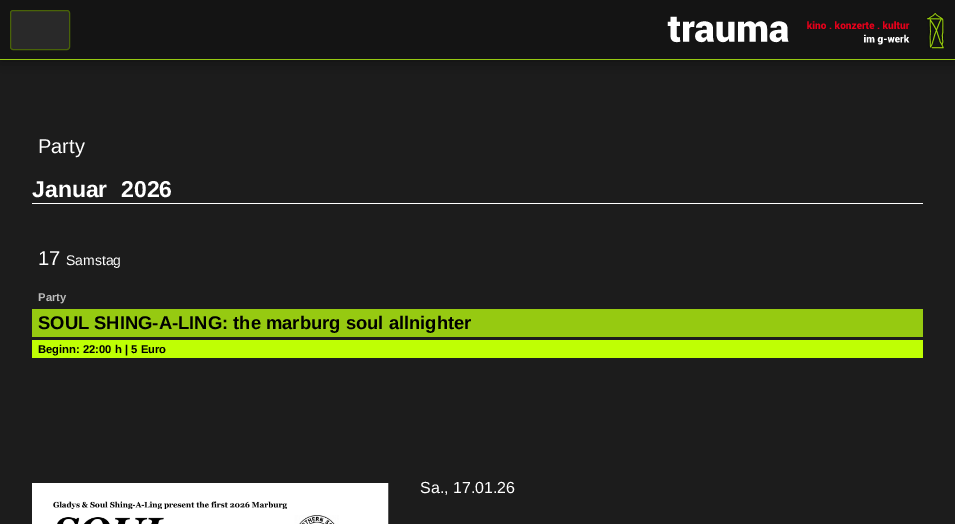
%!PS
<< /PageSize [955 524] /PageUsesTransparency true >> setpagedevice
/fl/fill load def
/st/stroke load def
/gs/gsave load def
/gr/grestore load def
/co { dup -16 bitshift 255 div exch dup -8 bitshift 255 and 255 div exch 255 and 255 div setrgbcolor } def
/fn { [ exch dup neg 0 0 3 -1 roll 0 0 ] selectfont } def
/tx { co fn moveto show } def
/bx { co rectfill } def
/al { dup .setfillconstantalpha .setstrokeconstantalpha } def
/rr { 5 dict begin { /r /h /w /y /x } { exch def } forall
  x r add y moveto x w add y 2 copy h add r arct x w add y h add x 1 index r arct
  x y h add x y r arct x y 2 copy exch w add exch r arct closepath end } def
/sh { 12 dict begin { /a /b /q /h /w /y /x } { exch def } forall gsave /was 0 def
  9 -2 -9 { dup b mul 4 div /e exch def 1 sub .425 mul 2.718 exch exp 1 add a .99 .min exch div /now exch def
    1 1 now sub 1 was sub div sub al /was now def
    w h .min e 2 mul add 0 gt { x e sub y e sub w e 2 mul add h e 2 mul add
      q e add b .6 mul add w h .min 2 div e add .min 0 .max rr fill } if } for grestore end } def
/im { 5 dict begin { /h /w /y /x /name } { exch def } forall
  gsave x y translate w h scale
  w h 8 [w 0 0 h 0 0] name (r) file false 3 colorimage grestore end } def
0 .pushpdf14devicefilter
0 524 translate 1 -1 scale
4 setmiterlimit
0 0 955 524 16#1C1C1C bx
16#000000 co
0 0 955 60 0 8 .5 sh
0 0 955 59 16#141414 bx
0 59 955 1 16#96CA11 bx
16#292929 co
10.5 10.5 59 39 2.5 rr gs fl gr
16#496308 co
st
(media/1.raw) 667 12 277 37 im
32 203 891 1 16#FFFFFF bx
32 309 891 28 16#96CA11 bx
32 340 891 18 16#BFFF04 bx
16#FFFFFF co
32.5 483.5 355 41 rectstroke
(media/2.raw) 33 484 354 40 im
(Party) 38 153 /LiberationSans-Regular 20 16#FFFFFF tx
(Januar) 32 197 /LiberationSans-Bold 23 16#FFFFFF tx
(2026) 121 197 /LiberationSans-Bold 23 16#FFFFFF tx
(17) 38 265 /LiberationSans-Regular 20 16#FFFFFF tx
(Samstag) 66 265 /LiberationSans-Regular 14 16#FFFFFF tx
(Party) 38 301 /LiberationSans-Bold 11.25 16#BBBBBB tx
(SOUL SHING-A-LING: the marburg soul allnighter) 38 329 /LiberationSans-Bold 18.4 16#000000 tx
(Beginn: 22:00 h | 5 Euro) 38 353 /LiberationSans-Bold 11.25 16#000000 tx
(Sa., 17.01.26) 420 493 /LiberationSans-Regular 16 16#FFFFFF tx
.poppdf14devicefilter showpage
